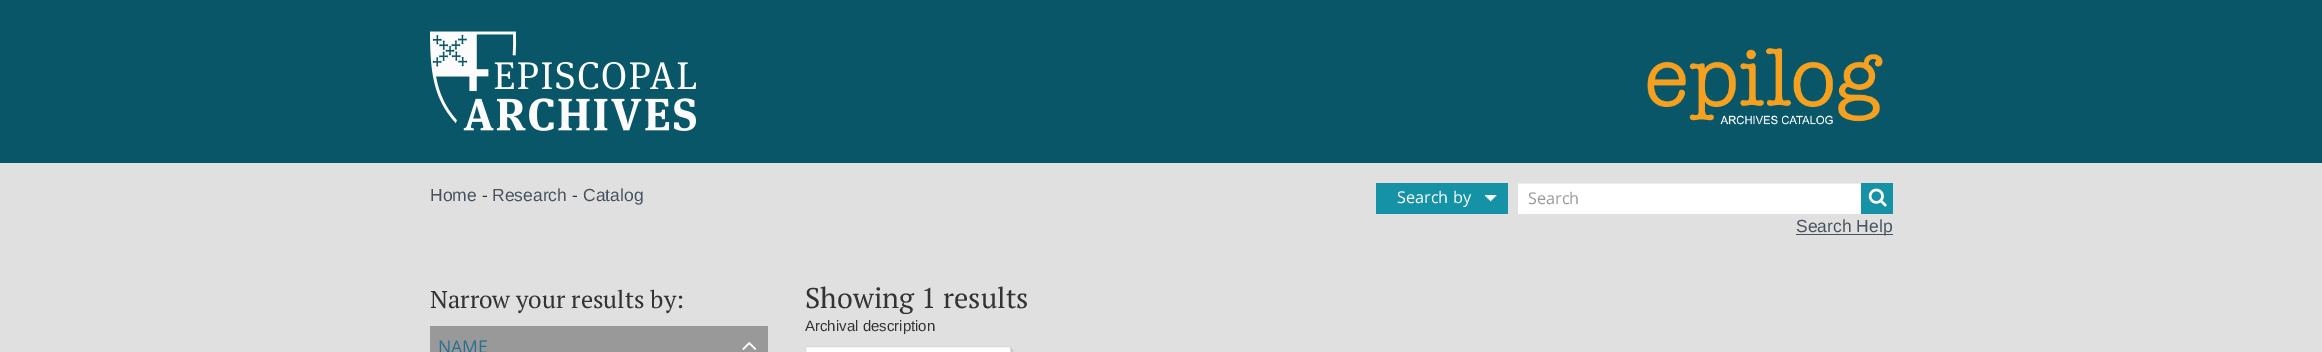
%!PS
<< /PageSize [2322 352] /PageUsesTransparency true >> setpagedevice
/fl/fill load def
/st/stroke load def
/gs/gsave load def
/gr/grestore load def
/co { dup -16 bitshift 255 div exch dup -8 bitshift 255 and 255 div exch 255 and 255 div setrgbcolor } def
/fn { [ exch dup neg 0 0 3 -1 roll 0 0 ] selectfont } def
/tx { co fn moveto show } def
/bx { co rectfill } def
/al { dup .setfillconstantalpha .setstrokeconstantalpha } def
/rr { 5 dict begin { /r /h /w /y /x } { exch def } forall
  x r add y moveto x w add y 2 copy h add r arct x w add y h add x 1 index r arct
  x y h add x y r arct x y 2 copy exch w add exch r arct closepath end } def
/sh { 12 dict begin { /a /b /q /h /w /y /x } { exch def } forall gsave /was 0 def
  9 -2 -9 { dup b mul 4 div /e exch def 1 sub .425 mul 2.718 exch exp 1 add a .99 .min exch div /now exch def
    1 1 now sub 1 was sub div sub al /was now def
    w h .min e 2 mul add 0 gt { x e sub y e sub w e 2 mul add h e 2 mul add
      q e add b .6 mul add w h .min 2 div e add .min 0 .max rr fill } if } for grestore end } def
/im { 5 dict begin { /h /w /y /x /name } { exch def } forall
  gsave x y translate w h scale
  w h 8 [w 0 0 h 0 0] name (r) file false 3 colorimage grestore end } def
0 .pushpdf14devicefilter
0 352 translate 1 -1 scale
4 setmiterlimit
0 0 2322 352 16#E0E0E0 bx
0 0 2322 163 16#095669 bx
(media/1.raw) 430 31 266 100 im
(media/2.raw) 1647 48 236 77 im
1376 183 132 31 16#1592A6 bx
(media/3.raw) 1485 195 12 7 im
1518 184 343 30 16#FFFFFF bx
1518 183 343 1 16#ECECEC bx
1861 183 32 31 16#1592A6 bx
(media/4.raw) 1868 188 19 19 im
1796 234 97 1 16#47525E bx
430 326 338 26 16#999999 bx
(media/5.raw) 742 342 15 8 im
16#000000 co
806 348 207 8 2.5 .5 .1 sh
16#FFFFFF co
805.5 346.5 205 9 2 rr gs fl gr
16#D9D9D9 co
st
(Home) 430 201 /LiberationSans-Regular 17.5 16#47525E tx
(-) 482 201 /LiberationSans-Regular 17.5 16#333333 tx
(Research) 492 201 /LiberationSans-Regular 17.5 16#47525E tx
(-) 572 201 /LiberationSans-Regular 17.5 16#333333 tx
(Catalog) 583 201 /LiberationSans-Regular 17.5 16#47525E tx
(Search by) 1397 203 /OpenSans-Regular 16.25 16#FFFFFF tx
(Search) 1528 204 /OpenSans-Regular 16.25 16#999999 tx
(Search Help) 1796 232 /LiberationSans-Regular 17.5 16#47525E tx
(Narrow your results by:) 430 308 /PTSerif-Regular 24.4 16#333333 tx
(NAME) 438 353 /OpenSans-Regular 17.5 16#266F8E tx
(Showing 1 results) 805 308 /PTSerif-Regular 28.5 16#333333 tx
(Archival description) 805 331 /LiberationSans-Regular 15 16#333333 tx
.poppdf14devicefilter showpage
